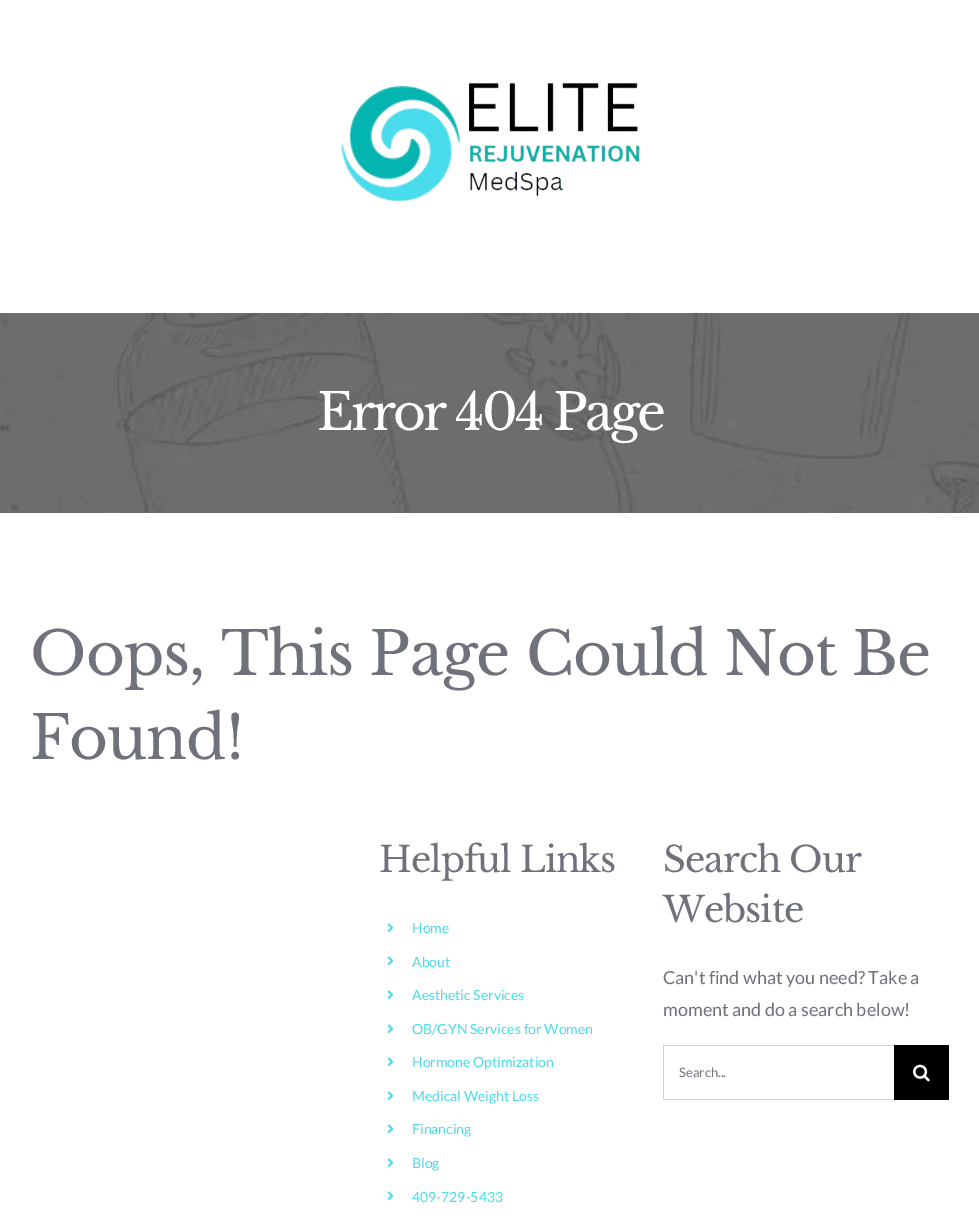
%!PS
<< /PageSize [979 1230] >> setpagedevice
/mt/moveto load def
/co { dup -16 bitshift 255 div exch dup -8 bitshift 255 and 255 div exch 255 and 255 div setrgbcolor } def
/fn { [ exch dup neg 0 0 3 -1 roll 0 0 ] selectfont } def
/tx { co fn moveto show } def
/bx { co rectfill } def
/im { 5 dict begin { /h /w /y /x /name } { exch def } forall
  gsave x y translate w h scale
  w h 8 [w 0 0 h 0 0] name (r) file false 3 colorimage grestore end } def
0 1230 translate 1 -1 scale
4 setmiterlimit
0 0 979 1230 16#FFFFFF bx
(media/1.raw) 341 83 299 119 im
(media/2.raw) 0 313 979 200 im
(media/3.raw) 387 923 7 10 im
(media/3.raw) 387 956 7 10 im
(media/3.raw) 387 990 7 10 im
(media/3.raw) 387 1024 7 10 im
(media/3.raw) 387 1057 7 10 im
(media/3.raw) 387 1091 7 10 im
(media/3.raw) 387 1124 7 10 im
(media/3.raw) 387 1158 7 10 im
(media/3.raw) 387 1191 7 10 im
663 1045 231 1 16#D1D1D1 bx
663 1099 231 1 16#D1D1D1 bx
663 1045 1 55 16#D1D1D1 bx
894 1045 55 55 16#000000 bx
(media/4.raw) 913 1064 17 18 im
/LibreBaskerville-Regular 50.5 fn
16#FFFFFF co
317 430 mt -3 0 (Error 404 Page) ashow
/LibreBaskerville-Regular 59.75 fn
16#6F727B co
30 675 mt -1 0 (Oops, This Page Could Not Be) ashow
30 759 mt -1 0 (Found!) ashow
/LibreBaskerville-Regular 35.5 fn
379 872 mt -1 0 (Helpful Links) ashow
(Home) 412 933 /Lato-Regular 14 16#49DCEC tx
(About) 412 967 /Lato-Regular 14 16#49DCEC tx
(Aesthetic Services) 412 1000 /Lato-Regular 14 16#49DCEC tx
(OB/GYN Services for Women) 412 1034 /Lato-Regular 14 16#49DCEC tx
(Hormone Optimization) 412 1067 /Lato-Regular 14 16#49DCEC tx
(Medical Weight Loss) 412 1101 /Lato-Regular 14 16#49DCEC tx
(Financing) 412 1134 /Lato-Regular 14 16#49DCEC tx
(Blog) 412 1168 /Lato-Regular 14 16#49DCEC tx
(409-729-5433) 412 1202 /Lato-Regular 14 16#49DCEC tx
/LibreBaskerville-Regular 35.5 fn
16#6F727B co
663 872 mt -1 0 (Search Our) ashow
663 922 mt -1 0 (Website) ashow
(Can't find what you need? Take a) 663 984 /Lato-Regular 18 16#6F727B tx
(moment and do a search below!) 663 1016 /Lato-Regular 18 16#6F727B tx
(Search...) 679 1077 /Lato-Regular 13 16#6F727B tx
showpage
